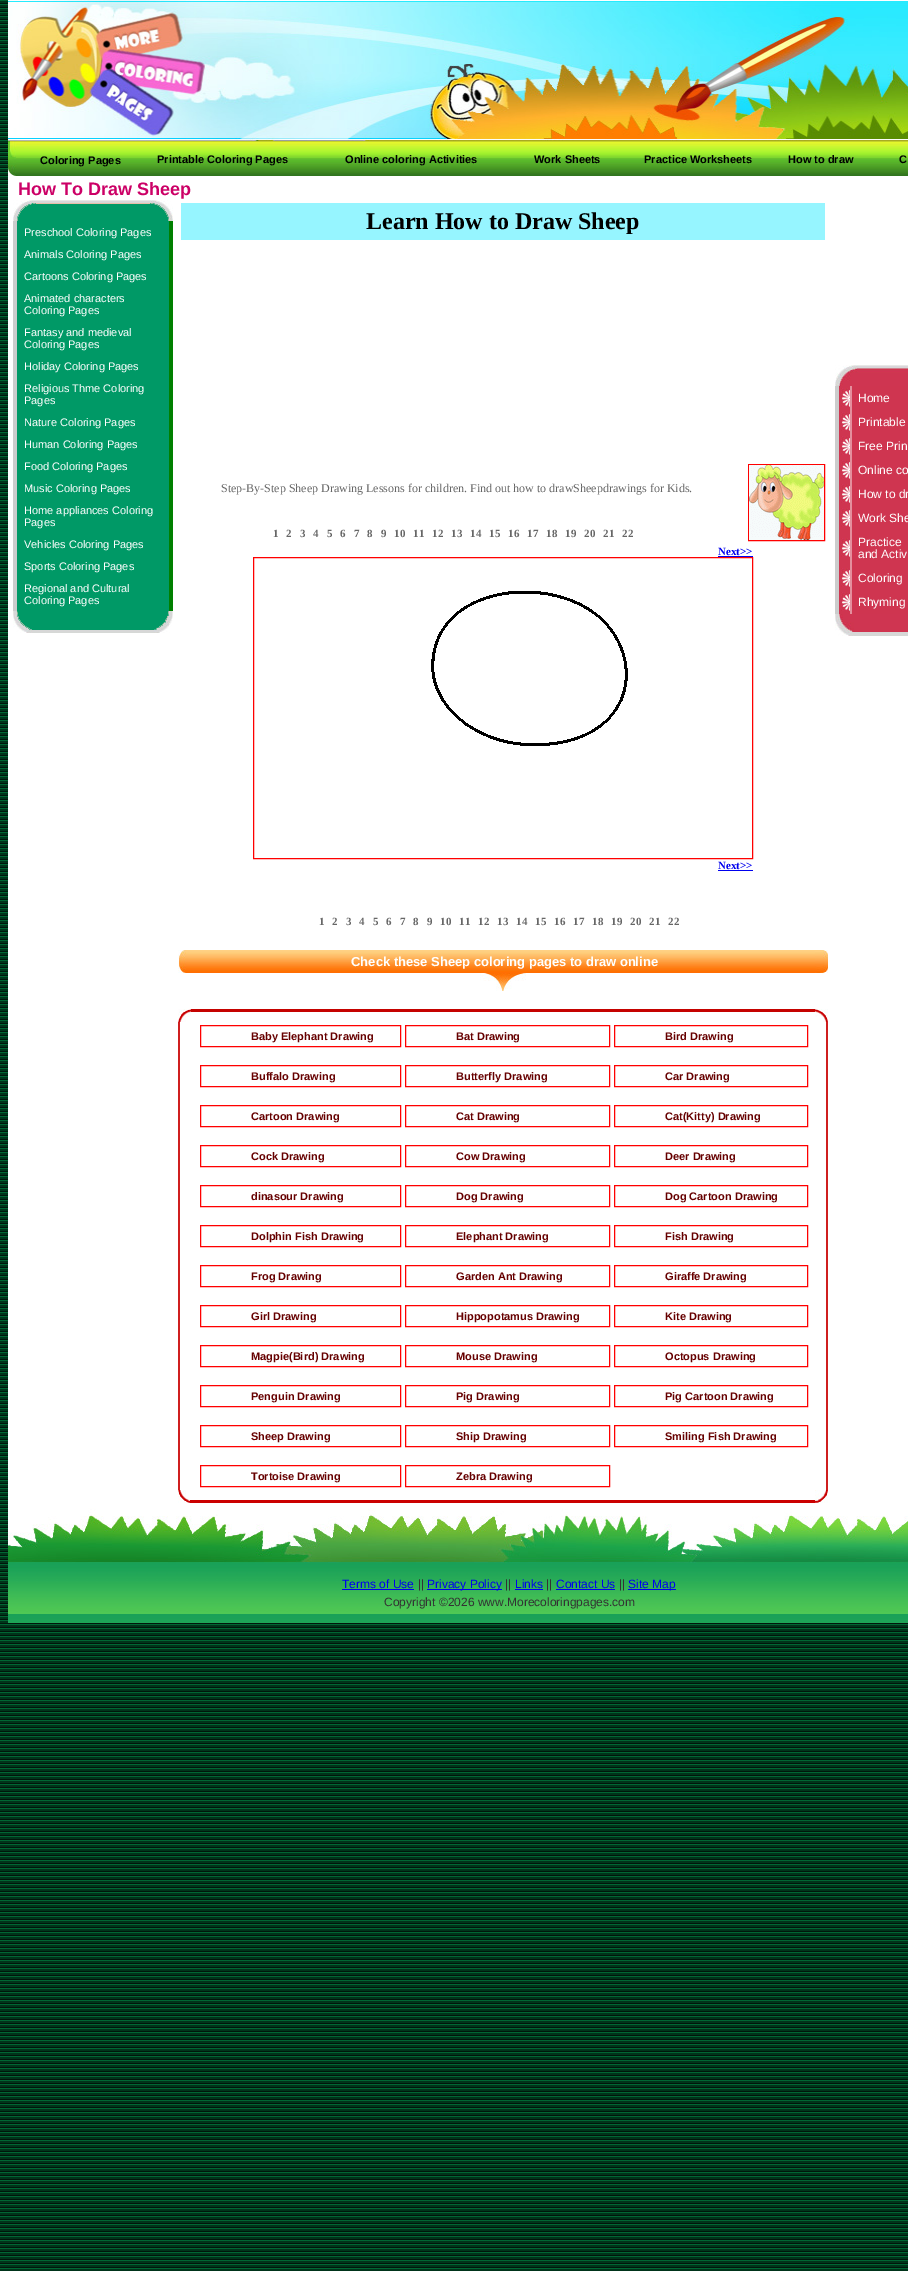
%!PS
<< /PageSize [908 2271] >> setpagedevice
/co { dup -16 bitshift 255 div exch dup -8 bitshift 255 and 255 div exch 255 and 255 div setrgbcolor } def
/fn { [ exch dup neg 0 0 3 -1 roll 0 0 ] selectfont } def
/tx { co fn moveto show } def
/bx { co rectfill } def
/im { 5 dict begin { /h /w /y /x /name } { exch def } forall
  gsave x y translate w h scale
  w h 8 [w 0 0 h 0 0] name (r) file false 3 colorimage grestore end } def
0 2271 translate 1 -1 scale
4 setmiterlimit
0 0 908 2271 16#FFFFFF bx
(media/1.raw) 0 0 908 2271 im
8 176 900 1332 16#FFFFFF bx
(media/2.raw) 8 0 900 141 im
(media/3.raw) 8 141 16 35 im
(media/4.raw) 24 141 884 35 im
(media/5.raw) 13 200 23 21 im
(media/6.raw) 36 200 114 21 im
(media/7.raw) 150 200 23 21 im
17 221 152 390 16#009966 bx
169 221 4 390 16#008000 bx
13 221 4 390 16#CCCCCC bx
(media/8.raw) 13 611 19 22 im
(media/9.raw) 32 611 122 22 im
(media/10.raw) 154 611 19 22 im
181 203 644 37 16#96F5FF bx
16#FF0000 co
748.5 464.5 76 76 rectstroke
(media/11.raw) 749 465 75 75 im
718 556 35 1 16#0000EE bx
16#FF0000 co
253.5 557.5 499 301 rectstroke
(media/12.raw) 431 591 197 155 im
718 870 35 1 16#0000EE bx
(media/13.raw) 186 950 8 23 im
(media/14.raw) 178 950 8 23 im
(media/15.raw) 194 950 621 23 im
(media/16.raw) 815 950 13 23 im
(media/17.raw) 480 973 46 18 im
(media/18.raw) 178 1009 13 13 im
191 1009 624 3 16#C50200 bx
(media/19.raw) 815 1009 13 13 im
178 1022 2 468 16#CF1F1F bx
16#FF0000 co
200.5 1025.5 200 21 rectstroke
405.5 1025.5 204 21 rectstroke
614.5 1025.5 193 21 rectstroke
200.5 1065.5 200 21 rectstroke
405.5 1065.5 204 21 rectstroke
614.5 1065.5 193 21 rectstroke
200.5 1105.5 200 21 rectstroke
405.5 1105.5 204 21 rectstroke
614.5 1105.5 193 21 rectstroke
200.5 1145.5 200 21 rectstroke
405.5 1145.5 204 21 rectstroke
614.5 1145.5 193 21 rectstroke
200.5 1185.5 200 21 rectstroke
405.5 1185.5 204 21 rectstroke
614.5 1185.5 193 21 rectstroke
200.5 1225.5 200 21 rectstroke
405.5 1225.5 204 21 rectstroke
614.5 1225.5 193 21 rectstroke
200.5 1265.5 200 21 rectstroke
405.5 1265.5 204 21 rectstroke
614.5 1265.5 193 21 rectstroke
200.5 1305.5 200 21 rectstroke
405.5 1305.5 204 21 rectstroke
614.5 1305.5 193 21 rectstroke
200.5 1345.5 200 21 rectstroke
405.5 1345.5 204 21 rectstroke
614.5 1345.5 193 21 rectstroke
200.5 1385.5 200 21 rectstroke
405.5 1385.5 204 21 rectstroke
614.5 1385.5 193 21 rectstroke
200.5 1425.5 200 21 rectstroke
405.5 1425.5 204 21 rectstroke
614.5 1425.5 193 21 rectstroke
200.5 1465.5 200 21 rectstroke
405.5 1465.5 204 21 rectstroke
826 1022 2 468 16#CF1F1F bx
(media/20.raw) 178 1490 12 13 im
190 1500 625 3 16#CB0000 bx
(media/21.raw) 815 1490 13 13 im
(media/22.raw) 835 365 23 21 im
(media/23.raw) 858 365 50 21 im
839 386 69 228 16#CF3550 bx
835 386 4 228 16#CCCCCC bx
850 386 2 228 16#E48E9D bx
(media/24.raw) 841 388 9 19 im
(media/24.raw) 841 412 9 19 im
(media/24.raw) 841 436 9 19 im
(media/24.raw) 841 460 9 19 im
(media/24.raw) 841 484 9 19 im
(media/24.raw) 841 508 9 19 im
(media/24.raw) 841 538 9 19 im
(media/24.raw) 841 568 9 19 im
(media/24.raw) 841 592 9 19 im
(media/25.raw) 835 614 19 22 im
(media/26.raw) 854 614 54 22 im
(media/27.raw) 8 1508 900 55 im
(media/28.raw) 8 1563 900 60 im
342 1589 72 1 16#0000EE bx
427 1589 75 1 16#0000EE bx
515 1589 28 1 16#0000EE bx
556 1589 59 1 16#0000EE bx
628 1589 48 1 16#0000EE bx
(Coloring Pages) 40 164 /LiberationSans-Bold 11 16#000000 tx
(Printable Coloring Pages) 157 163 /LiberationSans-Bold 11 16#000000 tx
(Online coloring Activities) 345 163 /LiberationSans-Bold 11 16#000000 tx
(Work Sheets) 534 163 /LiberationSans-Bold 11 16#000000 tx
(Practice Worksheets) 644 163 /LiberationSans-Bold 11 16#000000 tx
(How to draw) 788 163 /LiberationSans-Bold 11 16#000000 tx
(C) 899 163 /LiberationSans-Bold 11 16#000000 tx
(How To Draw Sheep) 18 195 /LiberationSans-Bold 18 16#CC0066 tx
(Preschool Coloring Pages) 24 236 /LiberationSans-Regular 11 16#FFFFFF tx
(Animals Coloring Pages) 24 258 /LiberationSans-Regular 11 16#FFFFFF tx
(Cartoons Coloring Pages) 24 280 /LiberationSans-Regular 11 16#FFFFFF tx
(Animated characters) 24 302 /LiberationSans-Regular 11 16#FFFFFF tx
(Coloring Pages) 24 314 /LiberationSans-Regular 11 16#FFFFFF tx
(Fantasy and medieval) 24 336 /LiberationSans-Regular 11 16#FFFFFF tx
(Coloring Pages) 24 348 /LiberationSans-Regular 11 16#FFFFFF tx
(Holiday Coloring Pages) 24 370 /LiberationSans-Regular 11 16#FFFFFF tx
(Religious Thme Coloring) 24 392 /LiberationSans-Regular 11 16#FFFFFF tx
(Pages) 24 404 /LiberationSans-Regular 11 16#FFFFFF tx
(Nature Coloring Pages) 24 426 /LiberationSans-Regular 11 16#FFFFFF tx
(Human Coloring Pages) 24 448 /LiberationSans-Regular 11 16#FFFFFF tx
(Food Coloring Pages) 24 470 /LiberationSans-Regular 11 16#FFFFFF tx
(Music Coloring Pages) 24 492 /LiberationSans-Regular 11 16#FFFFFF tx
(Home appliances Coloring) 24 514 /LiberationSans-Regular 11 16#FFFFFF tx
(Pages) 24 526 /LiberationSans-Regular 11 16#FFFFFF tx
(Vehicles Coloring Pages) 24 548 /LiberationSans-Regular 11 16#FFFFFF tx
(Sports Coloring Pages) 24 570 /LiberationSans-Regular 11 16#FFFFFF tx
(Regional and Cultural) 24 592 /LiberationSans-Regular 11 16#FFFFFF tx
(Coloring Pages) 24 604 /LiberationSans-Regular 11 16#FFFFFF tx
(Learn How to Draw Sheep) 366 229 /LiberationSerif-Bold 24 16#000000 tx
(Step-By-Step Sheep Drawing Lessons for children. Find out how to drawSheepdrawings for Kids.) 221 492 /LiberationSerif-Regular 12 16#666666 tx
(1) 273 537 /LiberationSerif-Bold 11 16#666666 tx
(2) 286 537 /LiberationSerif-Bold 11 16#666666 tx
(3) 300 537 /LiberationSerif-Bold 11 16#666666 tx
(4) 313 537 /LiberationSerif-Bold 11 16#666666 tx
(5) 327 537 /LiberationSerif-Bold 11 16#666666 tx
(6) 340 537 /LiberationSerif-Bold 11 16#666666 tx
(7) 354 537 /LiberationSerif-Bold 11 16#666666 tx
(8) 367 537 /LiberationSerif-Bold 11 16#666666 tx
(9) 381 537 /LiberationSerif-Bold 11 16#666666 tx
(10) 394 537 /LiberationSerif-Bold 11 16#666666 tx
(11) 413 537 /LiberationSerif-Bold 11 16#666666 tx
(12) 432 537 /LiberationSerif-Bold 11 16#666666 tx
(13) 451 537 /LiberationSerif-Bold 11 16#666666 tx
(14) 470 537 /LiberationSerif-Bold 11 16#666666 tx
(15) 489 537 /LiberationSerif-Bold 11 16#666666 tx
(16) 508 537 /LiberationSerif-Bold 11 16#666666 tx
(17) 527 537 /LiberationSerif-Bold 11 16#666666 tx
(18) 546 537 /LiberationSerif-Bold 11 16#666666 tx
(19) 565 537 /LiberationSerif-Bold 11 16#666666 tx
(20) 584 537 /LiberationSerif-Bold 11 16#666666 tx
(21) 603 537 /LiberationSerif-Bold 11 16#666666 tx
(22) 622 537 /LiberationSerif-Bold 11 16#666666 tx
(Next>>) 718 555 /LiberationSerif-Bold 11 16#0000EE tx
(Next>>) 718 869 /LiberationSerif-Bold 11 16#0000EE tx
(1) 319 925 /LiberationSerif-Bold 11 16#666666 tx
(2) 332 925 /LiberationSerif-Bold 11 16#666666 tx
(3) 346 925 /LiberationSerif-Bold 11 16#666666 tx
(4) 359 925 /LiberationSerif-Bold 11 16#666666 tx
(5) 373 925 /LiberationSerif-Bold 11 16#666666 tx
(6) 386 925 /LiberationSerif-Bold 11 16#666666 tx
(7) 400 925 /LiberationSerif-Bold 11 16#666666 tx
(8) 413 925 /LiberationSerif-Bold 11 16#666666 tx
(9) 427 925 /LiberationSerif-Bold 11 16#666666 tx
(10) 440 925 /LiberationSerif-Bold 11 16#666666 tx
(11) 459 925 /LiberationSerif-Bold 11 16#666666 tx
(12) 478 925 /LiberationSerif-Bold 11 16#666666 tx
(13) 497 925 /LiberationSerif-Bold 11 16#666666 tx
(14) 516 925 /LiberationSerif-Bold 11 16#666666 tx
(15) 535 925 /LiberationSerif-Bold 11 16#666666 tx
(16) 554 925 /LiberationSerif-Bold 11 16#666666 tx
(17) 573 925 /LiberationSerif-Bold 11 16#666666 tx
(18) 592 925 /LiberationSerif-Bold 11 16#666666 tx
(19) 611 925 /LiberationSerif-Bold 11 16#666666 tx
(20) 630 925 /LiberationSerif-Bold 11 16#666666 tx
(21) 649 925 /LiberationSerif-Bold 11 16#666666 tx
(22) 668 925 /LiberationSerif-Bold 11 16#666666 tx
(Check these Sheep coloring pages to draw online) 351 966 /LiberationSans-Bold 13 16#FFFFFF tx
(Baby Elephant Drawing) 251 1040 /LiberationSans-Bold 11 16#660000 tx
(Bat Drawing) 456 1040 /LiberationSans-Bold 11 16#660000 tx
(Bird Drawing) 665 1040 /LiberationSans-Bold 11 16#660000 tx
(Buffalo Drawing) 251 1080 /LiberationSans-Bold 11 16#660000 tx
(Butterfly Drawing) 456 1080 /LiberationSans-Bold 11 16#660000 tx
(Car Drawing) 665 1080 /LiberationSans-Bold 11 16#660000 tx
(Cartoon Drawing) 251 1120 /LiberationSans-Bold 11 16#660000 tx
(Cat Drawing) 456 1120 /LiberationSans-Bold 11 16#660000 tx
(Cat\(Kitty\) Drawing) 665 1120 /LiberationSans-Bold 11 16#660000 tx
(Cock Drawing) 251 1160 /LiberationSans-Bold 11 16#660000 tx
(Cow Drawing) 456 1160 /LiberationSans-Bold 11 16#660000 tx
(Deer Drawing) 665 1160 /LiberationSans-Bold 11 16#660000 tx
(dinasour Drawing) 251 1200 /LiberationSans-Bold 11 16#660000 tx
(Dog Drawing) 456 1200 /LiberationSans-Bold 11 16#660000 tx
(Dog Cartoon Drawing) 665 1200 /LiberationSans-Bold 11 16#660000 tx
(Dolphin Fish Drawing) 251 1240 /LiberationSans-Bold 11 16#660000 tx
(Elephant Drawing) 456 1240 /LiberationSans-Bold 11 16#660000 tx
(Fish Drawing) 665 1240 /LiberationSans-Bold 11 16#660000 tx
(Frog Drawing) 251 1280 /LiberationSans-Bold 11 16#660000 tx
(Garden Ant Drawing) 456 1280 /LiberationSans-Bold 11 16#660000 tx
(Giraffe Drawing) 665 1280 /LiberationSans-Bold 11 16#660000 tx
(Girl Drawing) 251 1320 /LiberationSans-Bold 11 16#660000 tx
(Hippopotamus Drawing) 456 1320 /LiberationSans-Bold 11 16#660000 tx
(Kite Drawing) 665 1320 /LiberationSans-Bold 11 16#660000 tx
(Magpie\(Bird\) Drawing) 251 1360 /LiberationSans-Bold 11 16#660000 tx
(Mouse Drawing) 456 1360 /LiberationSans-Bold 11 16#660000 tx
(Octopus Drawing) 665 1360 /LiberationSans-Bold 11 16#660000 tx
(Penguin Drawing) 251 1400 /LiberationSans-Bold 11 16#660000 tx
(Pig Drawing) 456 1400 /LiberationSans-Bold 11 16#660000 tx
(Pig Cartoon Drawing) 665 1400 /LiberationSans-Bold 11 16#660000 tx
(Sheep Drawing) 251 1440 /LiberationSans-Bold 11 16#660000 tx
(Ship Drawing) 456 1440 /LiberationSans-Bold 11 16#660000 tx
(Smiling Fish Drawing) 665 1440 /LiberationSans-Bold 11 16#660000 tx
(Tortoise Drawing) 251 1480 /LiberationSans-Bold 11 16#660000 tx
(Zebra Drawing) 456 1480 /LiberationSans-Bold 11 16#660000 tx
(Home) 858 402 /LiberationSans-Regular 12 16#FFFFFF tx
(Printable) 858 426 /LiberationSans-Regular 12 16#FFFFFF tx
(Free Prin) 858 450 /LiberationSans-Regular 12 16#FFFFFF tx
(Online co) 858 474 /LiberationSans-Regular 12 16#FFFFFF tx
(How to dr) 858 498 /LiberationSans-Regular 12 16#FFFFFF tx
(Work She) 858 522 /LiberationSans-Regular 12 16#FFFFFF tx
(Practice) 858 546 /LiberationSans-Regular 12 16#FFFFFF tx
(and Activ) 858 558 /LiberationSans-Regular 12 16#FFFFFF tx
(Coloring) 858 582 /LiberationSans-Regular 12 16#FFFFFF tx
(Rhyming) 858 606 /LiberationSans-Regular 12 16#FFFFFF tx
(Terms of Use) 342 1588 /LiberationSans-Regular 12 16#0000EE tx
(||) 418 1588 /LiberationSans-Regular 12 16#333333 tx
(Privacy Policy) 427 1588 /LiberationSans-Regular 12 16#0000EE tx
(||) 505 1588 /LiberationSans-Regular 12 16#333333 tx
(Links) 515 1588 /LiberationSans-Regular 12 16#0000EE tx
(||) 546 1588 /LiberationSans-Regular 12 16#333333 tx
(Contact Us) 556 1588 /LiberationSans-Regular 12 16#0000EE tx
(||) 619 1588 /LiberationSans-Regular 12 16#333333 tx
(Site Map) 628 1588 /LiberationSans-Regular 12 16#0000EE tx
(Copyright ©2026 www.Morecoloringpages.com) 384 1606 /LiberationSans-Regular 12 16#333333 tx
showpage
